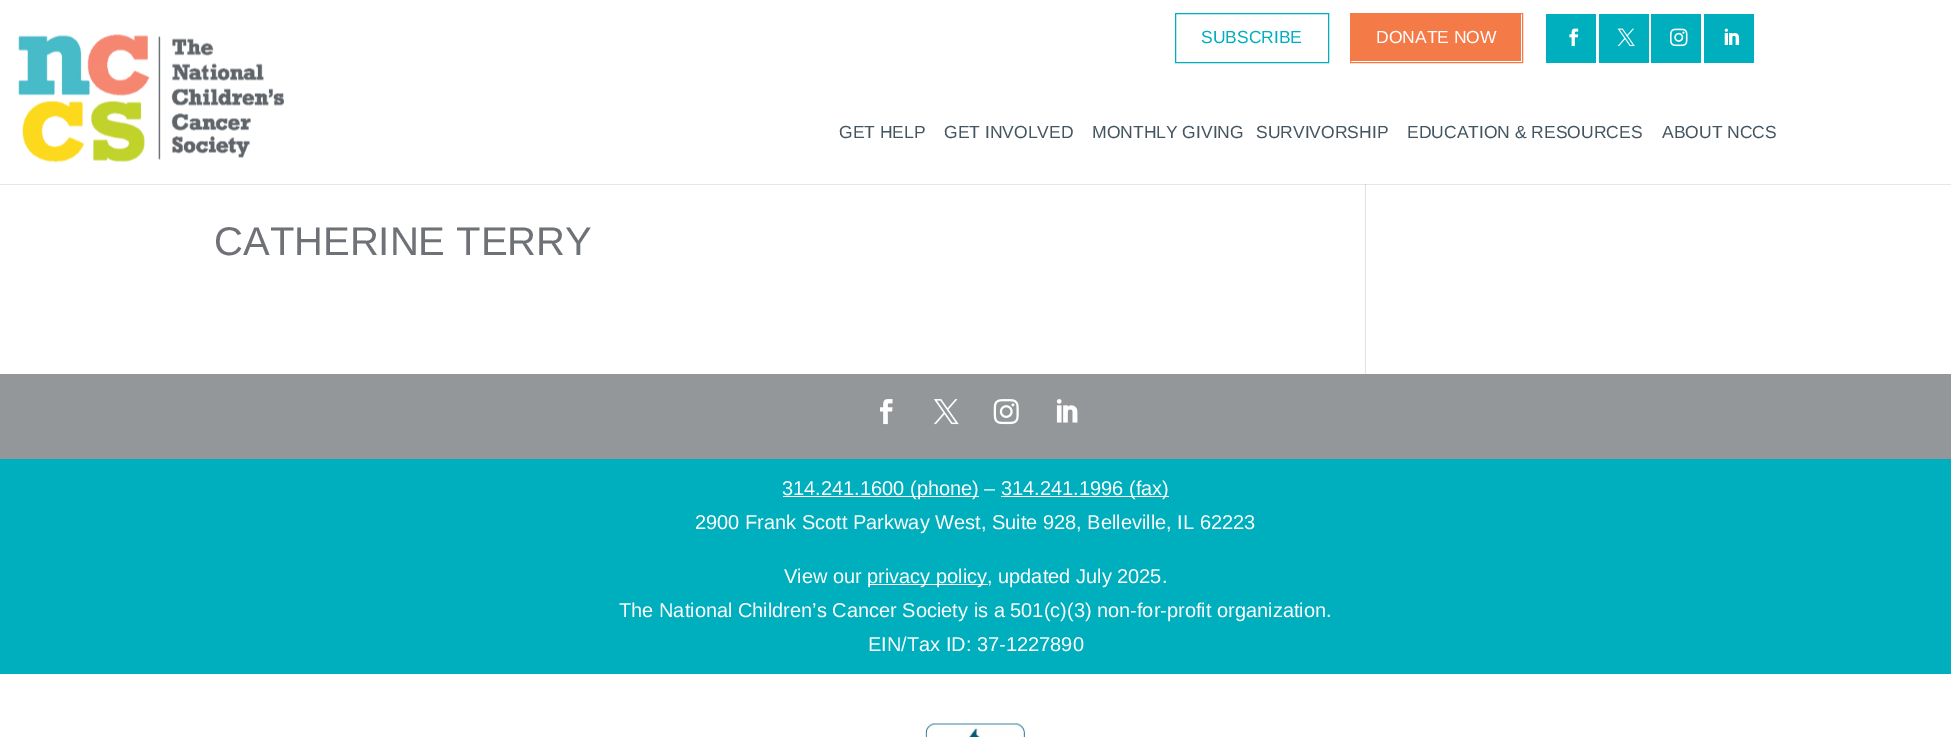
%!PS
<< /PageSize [1951 737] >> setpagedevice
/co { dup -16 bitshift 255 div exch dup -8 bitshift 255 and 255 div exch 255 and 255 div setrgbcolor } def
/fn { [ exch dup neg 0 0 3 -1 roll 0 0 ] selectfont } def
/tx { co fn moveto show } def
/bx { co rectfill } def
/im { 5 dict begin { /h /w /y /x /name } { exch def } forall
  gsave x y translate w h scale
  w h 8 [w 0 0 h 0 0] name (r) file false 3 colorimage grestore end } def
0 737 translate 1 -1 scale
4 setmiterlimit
0 0 1951 737 16#FFFFFF bx
0 184 1951 1 16#E6E6E6 bx
16#00AFBD co
1175.5 13.5 153 49 rectstroke
1351 14 170 47 16#F47A47 bx
1350.5 13.5 172 49 rectstroke
1546 14 50 49 16#00AFBD bx
(media/1.raw) 1569 28 10 19 im
1599 14 50 49 16#00AFBD bx
(media/2.raw) 1617 28 18 19 im
1651 14 50 49 16#00AFBD bx
(media/3.raw) 1670 28 18 19 im
1704 14 50 49 16#00AFBD bx
(media/4.raw) 1724 28 16 17 im
(media/5.raw) 18 34 266 129 im
1365 185 1 189 16#E2E2E2 bx
1365 184 1 1 16#CBCBCB bx
0 374 1951 85 16#939799 bx
(media/6.raw) 880 399 13 26 im
(media/7.raw) 934 399 25 26 im
(media/8.raw) 993 399 26 26 im
(media/9.raw) 1056 399 22 24 im
0 459 1951 215 16#00AFBD bx
783 496 196 1 16#FFFFFF bx
1001 496 168 1 16#FFFFFF bx
868 584 120 1 16#FFFFFF bx
(media/10.raw) 925 723 100 14 im
(SUBSCRIBE) 1201 43 /LiberationSans-Regular 17.5 16#00AFBD tx
(DONATE NOW) 1376 43 /LiberationSans-Regular 17.5 16#FFFFFF tx
(GET HELP) 839 138 /LiberationSans-Regular 17.5 16#455560 tx
(GET INVOLVED) 944 138 /LiberationSans-Regular 17.5 16#455560 tx
(MONTHLY GIVING) 1092 138 /LiberationSans-Regular 17.5 16#455560 tx
(SURVIVORSHIP) 1256 138 /LiberationSans-Regular 17.5 16#455560 tx
(EDUCATION & RESOURCES) 1407 138 /LiberationSans-Regular 17.5 16#455560 tx
(ABOUT NCCS) 1662 138 /LiberationSans-Regular 17.5 16#455560 tx
(CATHERINE TERRY) 214 255 /LiberationSans-Regular 40 16#6E7176 tx
(314.241.1600 \(phone\) –) 782 495 /LiberationSans-Regular 20 16#FFFFFF tx
(314.241.1996 \(fax\)) 1001 495 /LiberationSans-Regular 20 16#FFFFFF tx
(2900 Frank Scott Parkway West, Suite 928, Belleville, IL 62223) 695 529 /LiberationSans-Regular 20 16#FFFFFF tx
(View our) 784 583 /LiberationSans-Regular 20 16#FFFFFF tx
(privacy policy, updated July 2025.) 867 583 /LiberationSans-Regular 20 16#FFFFFF tx
(The National Children’s Cancer Society is a 501\(c\)\(3\) non-for-profit organization.) 619 617 /LiberationSans-Regular 20 16#FFFFFF tx
(EIN/Tax ID: 37-1227890) 868 651 /LiberationSans-Regular 20 16#FFFFFF tx
showpage
